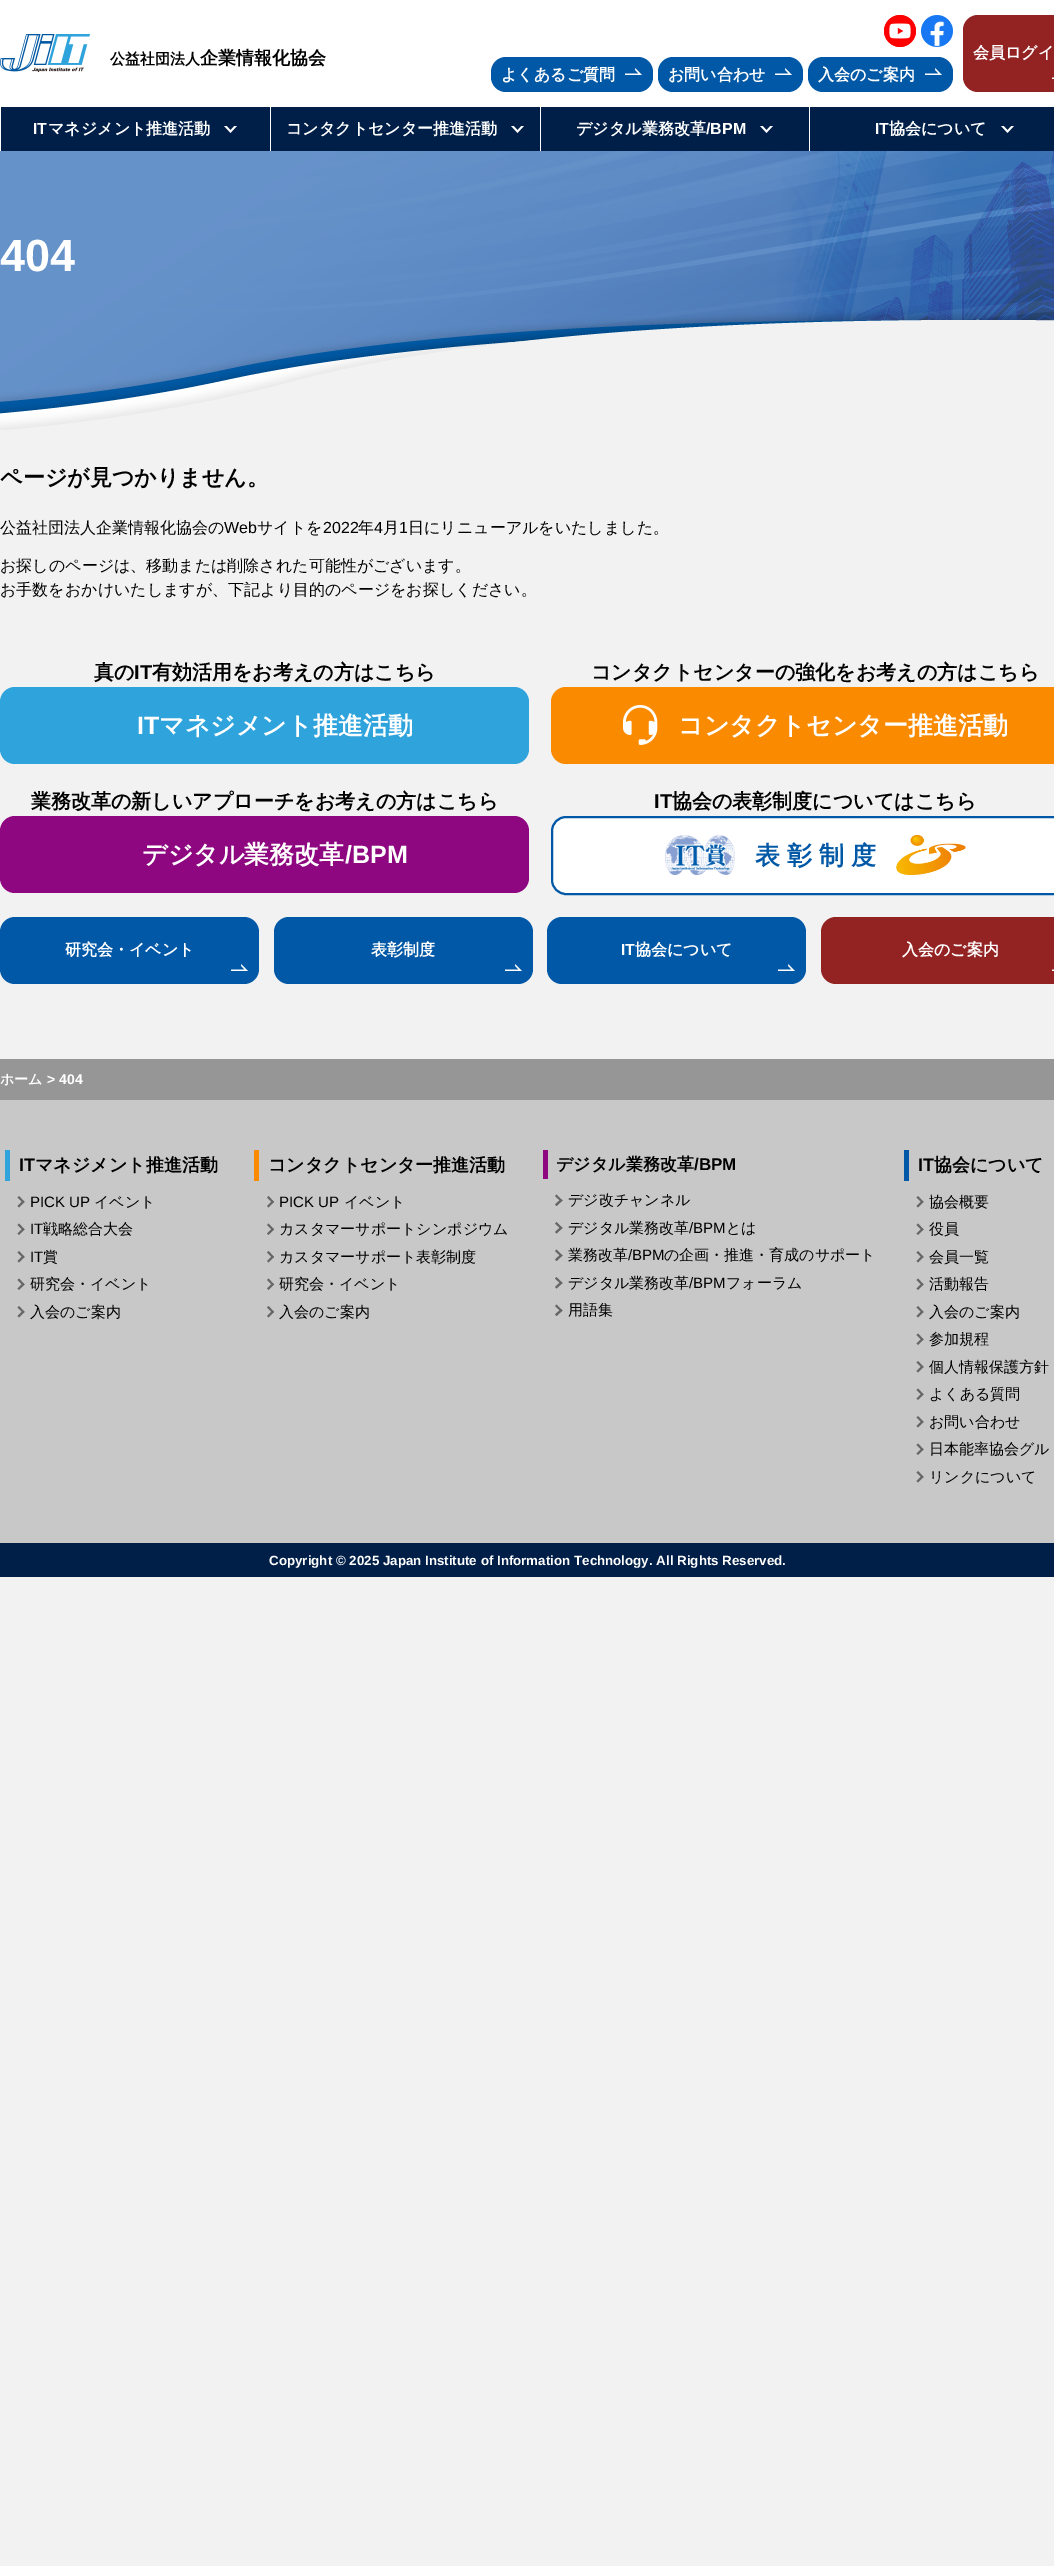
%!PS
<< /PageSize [1054 2566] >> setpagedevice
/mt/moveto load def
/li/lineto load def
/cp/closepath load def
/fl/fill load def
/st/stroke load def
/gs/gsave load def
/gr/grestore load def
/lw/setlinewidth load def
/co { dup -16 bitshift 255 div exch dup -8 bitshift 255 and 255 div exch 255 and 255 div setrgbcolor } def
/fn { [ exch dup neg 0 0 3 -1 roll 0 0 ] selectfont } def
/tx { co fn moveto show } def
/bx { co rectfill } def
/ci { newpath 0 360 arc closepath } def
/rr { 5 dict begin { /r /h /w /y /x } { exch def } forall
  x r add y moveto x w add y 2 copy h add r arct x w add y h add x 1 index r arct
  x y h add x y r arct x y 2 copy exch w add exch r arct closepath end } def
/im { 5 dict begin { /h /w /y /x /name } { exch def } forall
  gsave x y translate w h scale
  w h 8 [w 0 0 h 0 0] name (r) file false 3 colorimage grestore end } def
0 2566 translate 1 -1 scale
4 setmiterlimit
0 0 1054 2566 16#F2F2F2 bx
0 0 1054 107 16#FFFFFF bx
(media/1.raw) 0 34 90 38 im
16#932323 co
963 15 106 77 15 rr fl
(media/2.raw) 1052 77 2 2 im
(media/3.raw) 884 15 32 32 im
16#1877F2 co
937 31 16 ci fl
(media/4.raw) 921 15 32 32 im
16#0058A6 co
491 57 162 35 15 rr fl
(media/5.raw) 625 68 17 7 im
658 57 145 35 15 rr fl
(media/5.raw) 775 68 17 7 im
808 57 145 35 15 rr fl
(media/5.raw) 925 68 17 7 im
1 107 1053 44 16#001F48 bx
0 107 1 44 16#FFFFFF bx
(media/6.raw) 224 126 13 7 im
270 107 1 44 16#FFFFFF bx
(media/6.raw) 511 126 13 7 im
540 107 1 44 16#FFFFFF bx
(media/6.raw) 760 126 13 7 im
809 107 1 44 16#FFFFFF bx
(media/6.raw) 1001 126 13 7 im
(media/7.raw) 0 151 1054 279 im
16#2EA3DC co
0 687 529 77 15 rr fl
16#FA8B00 co
551 687 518 77 15 rr fl
(media/8.raw) 623 705 35 40 im
16#8E0780 co
0 816 529 77 15 rr fl
16#FFFFFF co
552 817 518 77 14 rr gs fl gr
16#0058A6 co
2 lw
st
(media/9.raw) 665 835 70 40 im
(media/10.raw) 896 835 70 40 im
0 917 259 67 15 rr fl
(media/5.raw) 231 964 17 7 im
274 917 259 67 15 rr fl
(media/5.raw) 505 964 17 7 im
547 917 259 67 15 rr fl
(media/5.raw) 778 964 17 7 im
16#932323 co
821 917 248 67 15 rr fl
(media/2.raw) 1052 969 2 2 im
0 1059 1054 41 16#969696 bx
0 1100 1054 443 16#C8C8C8 bx
5 1150 5 31 16#2EA3DC bx
16#666666 co
19 1196 mt 24.5 1202 li 23 1203 li 17.5 1197.5 li cp fl
23 1200.5 mt 24.5 1202 li 19 1207.5 li 17.5 1206 li cp fl
19 1223.5 mt 24.5 1229.5 li 23 1230.5 li 17.5 1225 li cp fl
23 1228 mt 24.5 1229.5 li 19 1235 li 17.5 1233.5 li cp fl
19 1251 mt 24.5 1257 li 23 1258 li 17.5 1252.5 li cp fl
23 1255.5 mt 24.5 1257 li 19 1262.5 li 17.5 1261 li cp fl
19 1278.5 mt 24.5 1284.5 li 23 1285.5 li 17.5 1280 li cp fl
23 1283 mt 24.5 1284.5 li 19 1290 li 17.5 1288.5 li cp fl
19 1306 mt 24.5 1312 li 23 1313 li 17.5 1307.5 li cp fl
23 1310.5 mt 24.5 1312 li 19 1317.5 li 17.5 1316 li cp fl
254 1150 5 31 16#FA8B00 bx
16#666666 co
268.5 1196 mt 274 1202 li 272.5 1203 li 267 1197.5 li cp fl
272.5 1200.5 mt 274 1202 li 268.5 1207.5 li 267 1206 li cp fl
268.5 1223.5 mt 274 1229.5 li 272.5 1230.5 li 267 1225 li cp fl
272.5 1228 mt 274 1229.5 li 268.5 1235 li 267 1233.5 li cp fl
268.5 1251 mt 274 1257 li 272.5 1258 li 267 1252.5 li cp fl
272.5 1255.5 mt 274 1257 li 268.5 1262.5 li 267 1261 li cp fl
268.5 1278.5 mt 274 1284.5 li 272.5 1285.5 li 267 1280 li cp fl
272.5 1283 mt 274 1284.5 li 268.5 1290 li 267 1288.5 li cp fl
268.5 1306 mt 274 1312 li 272.5 1313 li 267 1307.5 li cp fl
272.5 1310.5 mt 274 1312 li 268.5 1317.5 li 267 1316 li cp fl
543 1150 5 29 16#8E0780 bx
16#666666 co
556.5 1194.5 mt 562.5 1200.5 li 561 1201.5 li 555 1196 li cp fl
561 1199 mt 562.5 1200.5 li 556.5 1206 li 555 1204.5 li cp fl
556.5 1222 mt 562.5 1228 li 561 1229 li 555 1223.5 li cp fl
561 1226.5 mt 562.5 1228 li 556.5 1233.5 li 555 1232 li cp fl
556.5 1249.5 mt 562.5 1255.5 li 561 1256.5 li 555 1251 li cp fl
561 1254 mt 562.5 1255.5 li 556.5 1261 li 555 1259.5 li cp fl
556.5 1277 mt 562.5 1283 li 561 1284 li 555 1278.5 li cp fl
561 1281.5 mt 562.5 1283 li 556.5 1288.5 li 555 1287 li cp fl
556.5 1304.5 mt 562.5 1310.5 li 561 1311.5 li 555 1306 li cp fl
561 1309 mt 562.5 1310.5 li 556.5 1316 li 555 1314.5 li cp fl
904 1150 5 31 16#0058A6 bx
16#666666 co
918 1196 mt 923.5 1202 li 922 1203 li 916.5 1197.5 li cp fl
922 1200.5 mt 923.5 1202 li 918 1207.5 li 916.5 1206 li cp fl
918 1223.5 mt 923.5 1229.5 li 922 1230.5 li 916.5 1225 li cp fl
922 1228 mt 923.5 1229.5 li 918 1235 li 916.5 1233.5 li cp fl
918 1251 mt 923.5 1257 li 922 1258 li 916.5 1252.5 li cp fl
922 1255.5 mt 923.5 1257 li 918 1262.5 li 916.5 1261 li cp fl
918 1278.5 mt 923.5 1284.5 li 922 1285.5 li 916.5 1280 li cp fl
922 1283 mt 923.5 1284.5 li 918 1290 li 916.5 1288.5 li cp fl
918 1306 mt 923.5 1312 li 922 1313 li 916.5 1307.5 li cp fl
922 1310.5 mt 923.5 1312 li 918 1317.5 li 916.5 1316 li cp fl
918 1333.5 mt 923.5 1339.5 li 922 1340.5 li 916.5 1335 li cp fl
922 1338 mt 923.5 1339.5 li 918 1345 li 916.5 1343.5 li cp fl
918 1361 mt 923.5 1367 li 922 1368 li 916.5 1362.5 li cp fl
922 1365.5 mt 923.5 1367 li 918 1372.5 li 916.5 1371 li cp fl
918 1388.5 mt 923.5 1394.5 li 922 1395.5 li 916.5 1390 li cp fl
922 1393 mt 923.5 1394.5 li 918 1400 li 916.5 1398.5 li cp fl
918 1416 mt 923.5 1422 li 922 1423 li 916.5 1417.5 li cp fl
922 1420.5 mt 923.5 1422 li 918 1427.5 li 916.5 1426 li cp fl
918 1443.5 mt 923.5 1449.5 li 922 1450.5 li 916.5 1445 li cp fl
922 1448 mt 923.5 1449.5 li 918 1455 li 916.5 1453.5 li cp fl
918 1471 mt 923.5 1477 li 922 1478 li 916.5 1472.5 li cp fl
922 1475.5 mt 923.5 1477 li 918 1482.5 li 916.5 1481 li cp fl
0 1543 1054 34 16#001F48 bx
(公益社団法人) 110 64 /WenQuanYiZenHei-Bold 15 16#000000 tx
(企業情報化協会) 200 64 /WenQuanYiZenHei-Bold 18 16#000000 tx
(会員ログイ) 973 58 /WenQuanYiZenHei-Bold 16 16#FFFFFF tx
(よくあるご質問) 501 80 /WenQuanYiZenHei-Bold 16 16#FFFFFF tx
(お問い合わせ) 668 80 /WenQuanYiZenHei-Bold 16 16#FFFFFF tx
(入会のご案内) 818 80 /WenQuanYiZenHei-Bold 16 16#FFFFFF tx
(IT) 33 134 /LiberationSans-Bold 16 16#FFFFFF tx
(マネジメント推進活動) 48 134 /WenQuanYiZenHei-Bold 16 16#FFFFFF tx
(コンタクトセンター推進活動) 286 134 /WenQuanYiZenHei-Bold 16 16#FFFFFF tx
(デジタル業務改革) 576 134 /WenQuanYiZenHei-Bold 16 16#FFFFFF tx
(/BPM) 706 134 /LiberationSans-Bold 16 16#FFFFFF tx
(IT) 875 134 /LiberationSans-Bold 16 16#FFFFFF tx
(協会について) 889 134 /WenQuanYiZenHei-Bold 16 16#FFFFFF tx
(404) 0 271 /LiberationSans-Bold 45 16#FFFFFF tx
(ページが見つかりません。) 0 485 /WenQuanYiZenHei-Bold 22 16#000000 tx
(公益社団法人企業情報化協会の) 0 533 /WenQuanYiZenHei-Medium 16 16#000000 tx
(Web) 224 533 /LiberationSans-Regular 16 16#000000 tx
(サイトを) 257 533 /WenQuanYiZenHei-Medium 16 16#000000 tx
(2022) 323 533 /LiberationSans-Regular 16 16#000000 tx
(年) 358 533 /WenQuanYiZenHei-Medium 16 16#000000 tx
(4) 374 533 /LiberationSans-Regular 16 16#000000 tx
(月) 383 533 /WenQuanYiZenHei-Medium 16 16#000000 tx
(1) 399 533 /LiberationSans-Regular 16 16#000000 tx
(日にリニューアルをいたしました。) 408 533 /WenQuanYiZenHei-Medium 16 16#000000 tx
(お探しのページは、移動または削除された可能性がございます。) 0 571 /WenQuanYiZenHei-Medium 16 16#000000 tx
(お手数をおかけいたしますが、下記より目的のページをお探しください。) 0 595 /WenQuanYiZenHei-Medium 16 16#000000 tx
(真の) 94 679 /WenQuanYiZenHei-Bold 20 16#000000 tx
(IT) 134 679 /LiberationSans-Bold 20 16#000000 tx
(有効活用をお考えの方はこちら) 152 679 /WenQuanYiZenHei-Bold 20 16#000000 tx
(IT) 137 734 /LiberationSans-Bold 25 16#FFFFFF tx
(マネジメント推進活動) 159 734 /WenQuanYiZenHei-Bold 25 16#FFFFFF tx
(コンタクトセンターの強化をお考えの方はこちら) 591 679 /WenQuanYiZenHei-Bold 20 16#000000 tx
(コンタクトセンター推進活動) 678 734 /WenQuanYiZenHei-Bold 25 16#FFFFFF tx
(業務改革の新しいアプローチをお考えの方はこちら) 31 808 /WenQuanYiZenHei-Bold 20 16#000000 tx
(デジタル業務改革) 142 863 /WenQuanYiZenHei-Bold 25 16#FFFFFF tx
(/BPM) 345 863 /LiberationSans-Bold 25 16#FFFFFF tx
(IT) 654 808 /LiberationSans-Bold 20 16#000000 tx
(協会の表彰制度についてはこちら) 672 808 /WenQuanYiZenHei-Bold 20 16#000000 tx
/WenQuanYiZenHei-Bold 25 fn
16#0058A6 co
755 864 mt -.5 0 32 (表 彰 制 度) widthshow
(研究会・イベント) 65 955 /WenQuanYiZenHei-Bold 16 16#FFFFFF tx
(表彰制度) 371 955 /WenQuanYiZenHei-Bold 16 16#FFFFFF tx
(IT) 621 955 /LiberationSans-Bold 16 16#FFFFFF tx
(協会について) 635 955 /WenQuanYiZenHei-Bold 16 16#FFFFFF tx
(入会のご案内) 902 955 /WenQuanYiZenHei-Bold 16 16#FFFFFF tx
(ホーム) 0 1084 /WenQuanYiZenHei-Bold 14 16#FFFFFF tx
(> 404) 47 1084 /LiberationSans-Bold 14 16#FFFFFF tx
(IT) 19 1171 /LiberationSans-Bold 18 16#000000 tx
(マネジメント推進活動) 35 1171 /WenQuanYiZenHei-Bold 18 16#000000 tx
(PICK UP) 30 1207 /LiberationSans-Regular 15 16#000000 tx
(イベント) 94 1207 /WenQuanYiZenHei-Medium 15 16#000000 tx
(IT) 30 1234 /LiberationSans-Regular 15 16#000000 tx
(戦略総合大会) 43 1234 /WenQuanYiZenHei-Medium 15 16#000000 tx
(IT) 30 1262 /LiberationSans-Regular 15 16#000000 tx
(賞) 43 1262 /WenQuanYiZenHei-Medium 15 16#000000 tx
(研究会・イベント) 30 1289 /WenQuanYiZenHei-Medium 15 16#000000 tx
(入会のご案内) 30 1317 /WenQuanYiZenHei-Medium 15 16#000000 tx
(コンタクトセンター推進活動) 268 1171 /WenQuanYiZenHei-Bold 18 16#000000 tx
(PICK UP) 279 1207 /LiberationSans-Regular 15 16#000000 tx
(イベント) 344 1207 /WenQuanYiZenHei-Medium 15 16#000000 tx
(カスタマーサポートシンポジウム) 279 1234 /WenQuanYiZenHei-Medium 15 16#000000 tx
(カスタマーサポート表彰制度) 279 1262 /WenQuanYiZenHei-Medium 15 16#000000 tx
(研究会・イベント) 279 1289 /WenQuanYiZenHei-Medium 15 16#000000 tx
(入会のご案内) 279 1317 /WenQuanYiZenHei-Medium 15 16#000000 tx
(デジタル業務改革) 556 1170 /WenQuanYiZenHei-Bold 17 16#000000 tx
(/BPM) 694 1170 /LiberationSans-Bold 17 16#000000 tx
(デジ改チャンネル) 568 1205 /WenQuanYiZenHei-Medium 15 16#000000 tx
(デジタル業務改革) 568 1233 /WenQuanYiZenHei-Medium 15 16#000000 tx
(/BPM) 689 1233 /LiberationSans-Regular 15 16#000000 tx
(とは) 726 1233 /WenQuanYiZenHei-Medium 15 16#000000 tx
(業務改革) 568 1260 /WenQuanYiZenHei-Medium 15 16#000000 tx
(/BPM) 628 1260 /LiberationSans-Regular 15 16#000000 tx
(の企画・推進・育成のサポート) 664 1260 /WenQuanYiZenHei-Medium 15 16#000000 tx
(デジタル業務改革) 568 1288 /WenQuanYiZenHei-Medium 15 16#000000 tx
(/BPM) 689 1288 /LiberationSans-Regular 15 16#000000 tx
(フォーラム) 726 1288 /WenQuanYiZenHei-Medium 15 16#000000 tx
(用語集) 568 1315 /WenQuanYiZenHei-Medium 15 16#000000 tx
(IT) 918 1171 /LiberationSans-Bold 18 16#000000 tx
(協会について) 934 1171 /WenQuanYiZenHei-Bold 18 16#000000 tx
(協会概要) 929 1207 /WenQuanYiZenHei-Medium 15 16#000000 tx
(役員) 929 1234 /WenQuanYiZenHei-Medium 15 16#000000 tx
(会員一覧) 929 1262 /WenQuanYiZenHei-Medium 15 16#000000 tx
(活動報告) 929 1289 /WenQuanYiZenHei-Medium 15 16#000000 tx
(入会のご案内) 929 1317 /WenQuanYiZenHei-Medium 15 16#000000 tx
(参加規程) 929 1344 /WenQuanYiZenHei-Medium 15 16#000000 tx
(個人情報保護方針) 929 1372 /WenQuanYiZenHei-Medium 15 16#000000 tx
(よくある質問) 929 1399 /WenQuanYiZenHei-Medium 15 16#000000 tx
(お問い合わせ) 929 1427 /WenQuanYiZenHei-Medium 15 16#000000 tx
(日本能率協会グル) 929 1454 /WenQuanYiZenHei-Medium 15 16#000000 tx
(リンクについて) 929 1482 /WenQuanYiZenHei-Medium 15 16#000000 tx
(Copyright © 2025 Japan Institute of Information Technology. All Rights Reserved.) 269 1565 /LiberationSans-Bold 13.35 16#FFFFFF tx
showpage
